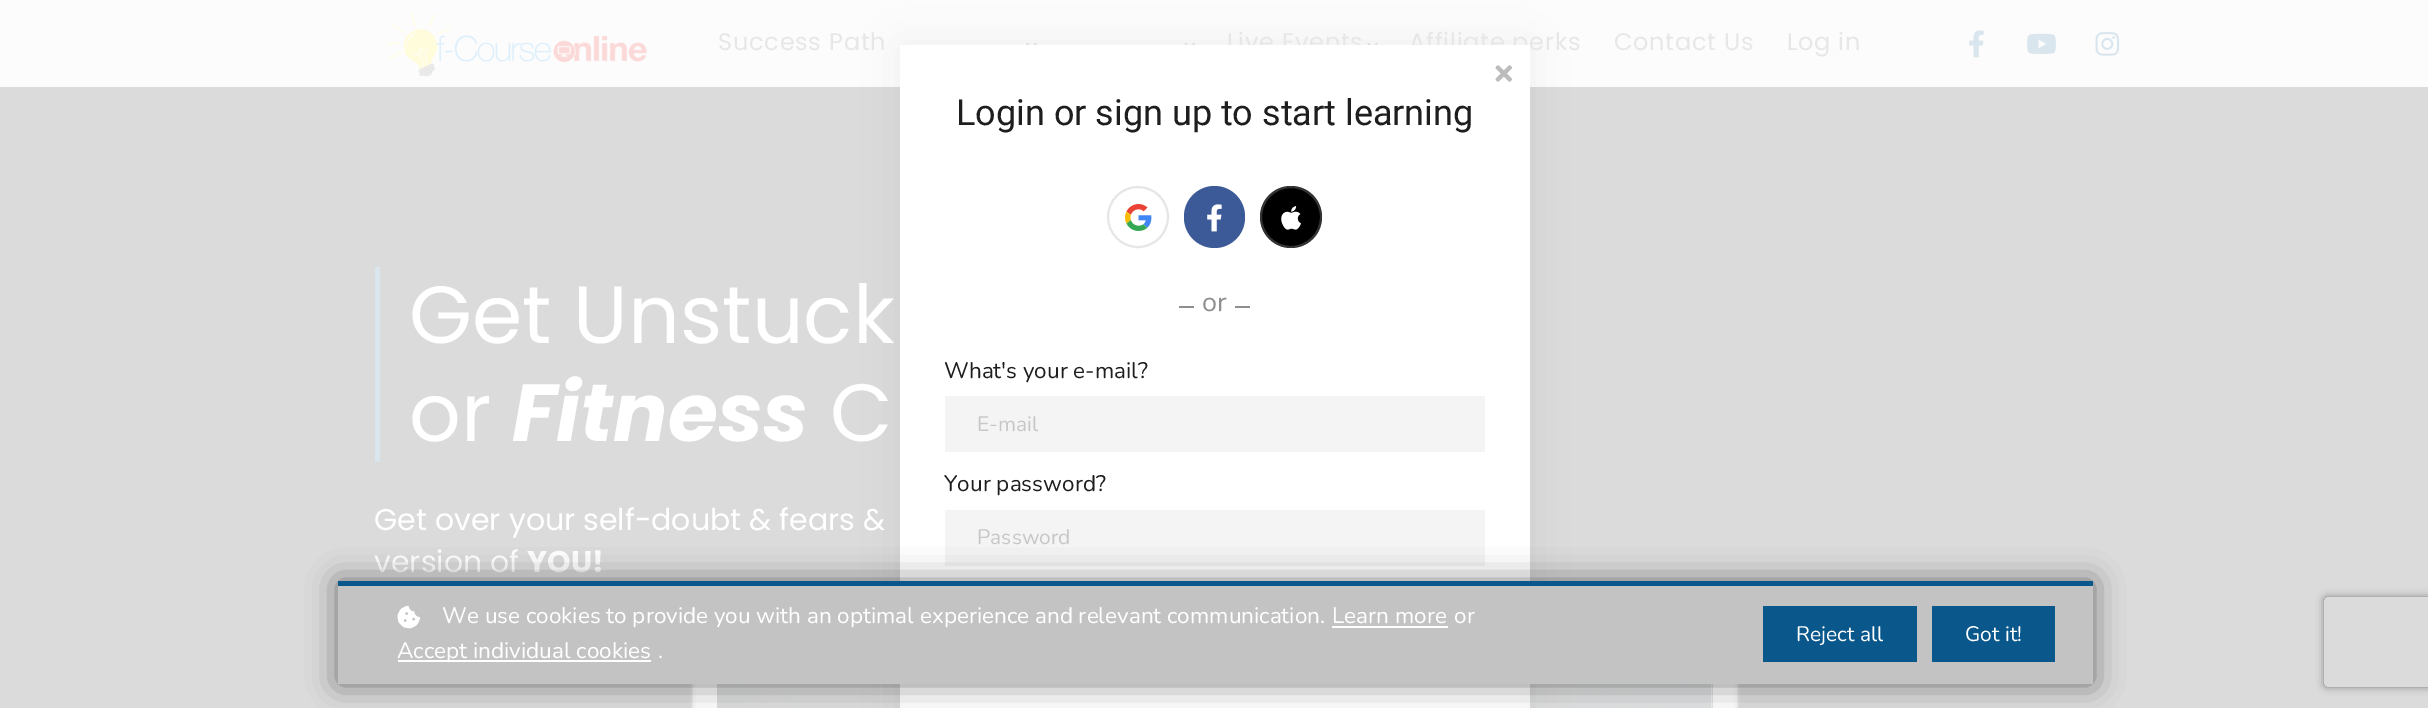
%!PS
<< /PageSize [2428 708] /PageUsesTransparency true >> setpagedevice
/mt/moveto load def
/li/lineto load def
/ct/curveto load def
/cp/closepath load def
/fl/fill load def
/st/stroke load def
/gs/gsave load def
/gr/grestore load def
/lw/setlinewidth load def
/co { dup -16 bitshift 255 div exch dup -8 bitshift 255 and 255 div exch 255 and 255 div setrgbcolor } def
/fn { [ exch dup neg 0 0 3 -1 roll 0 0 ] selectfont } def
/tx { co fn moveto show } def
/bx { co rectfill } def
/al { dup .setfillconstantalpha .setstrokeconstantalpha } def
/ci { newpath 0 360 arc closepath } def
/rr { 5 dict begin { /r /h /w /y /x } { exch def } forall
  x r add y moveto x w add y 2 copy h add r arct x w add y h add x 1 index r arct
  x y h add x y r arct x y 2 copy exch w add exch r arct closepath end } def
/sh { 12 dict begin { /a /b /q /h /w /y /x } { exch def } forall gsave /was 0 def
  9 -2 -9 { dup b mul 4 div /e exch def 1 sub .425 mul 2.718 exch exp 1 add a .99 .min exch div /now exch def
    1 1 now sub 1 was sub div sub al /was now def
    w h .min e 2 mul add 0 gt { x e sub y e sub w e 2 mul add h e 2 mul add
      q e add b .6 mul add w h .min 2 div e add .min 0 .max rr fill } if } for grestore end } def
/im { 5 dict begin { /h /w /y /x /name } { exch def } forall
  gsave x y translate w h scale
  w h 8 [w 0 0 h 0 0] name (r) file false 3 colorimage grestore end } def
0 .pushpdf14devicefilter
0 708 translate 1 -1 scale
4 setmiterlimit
0 0 2428 708 16#DBDBDB bx
0 0 2428 87 16#FCFCFC bx
(media/1.raw) 385 12 263 65 im
16#E7E7E7 co
1037 43.5 mt 1031.5 49 li 1030.5 47.5 li 1035.5 42.5 li cp fl
1032.5 47.5 mt 1031.5 49 li 1026 43.5 li 1027 42.5 li cp fl
1195 43.5 mt 1190 49 li 1189 47.5 li 1194 42.5 li cp fl
1191 47.5 mt 1190 49 li 1184.5 43.5 li 1185.5 42.5 li cp fl
1378 43.5 mt 1372.5 49 li 1371.5 47.5 li 1377 42.5 li cp fl
1373.5 47.5 mt 1372.5 49 li 1367.5 43.5 li 1368.5 42.5 li cp fl
(media/2.raw) 1969 30 15 28 im
(media/3.raw) 2027 33 29 21 im
(media/4.raw) 2095 32 25 24 im
375 267 5 195 16#DAE6EE bx
(media/5.raw) 689 684 1052 24 im
(media/6.raw) 717 684 995 24 im
(media/7.raw) 1712 684 1 24 im
16#000000 co
900 45 630 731 0 22.5 .05 sh
gs
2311 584 mt 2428 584 li 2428 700 li 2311 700 li cp 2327 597 mt 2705 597 li 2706.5 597 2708 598.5 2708 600 ct 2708 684 li 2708 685.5 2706.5 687 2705 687 ct 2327 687 li 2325.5 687 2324 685.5 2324 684 ct 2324 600 li 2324 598.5 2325.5 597 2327 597 ct cp eoclip newpath
16#808080 co
2324 597 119 90 3 4 1 sh
gr
/Poppins-Regular 24 fn
16#E7E7E7 co
718 50 mt .75 0 (Success Path) ashow
1227 50 mt .75 0 (Live Events) ashow
1409 50 mt .75 0 (Affiliate perks) ashow
1614 50 mt .75 0 (Contact Us) ashow
1787 50 mt .75 0 (Log in) ashow
(Get Unstuck) 409 343 /Poppins-Regular 81 16#FFFFFF tx
(or) 409 441 /Poppins-Regular 81 16#FFFFFF tx
(Fitness) 512 441 /Poppins-BoldItalic 81 16#FFFFFF tx
(C) 830 441 /Poppins-Regular 81 16#FFFFFF tx
(Get over your self-doubt & fears &) 374 530 /Poppins-Regular 30 16#FFFFFF tx
(version of) 374 572 /Poppins-Regular 30 16#FFFFFF tx
(YOU!) 527 572 /Poppins-Bold 30 16#FFFFFF tx
900 45 630 663 16#FFFFFF bx
(media/8.raw) 1495 65 17 17 im
(Login or sign up to start learning) 956 125 /Roboto-Regular 36 16#1E1E1E tx
16#E6E6E6 co
2 lw
1138 217 30 ci st
(media/9.raw) 1125 204 27 27 im
16#3C5A98 co
1184 186 61 62 30.5 rr fl
(media/10.raw) 1207 204 15 28 im
16#000000 co
1291 217 31 ci fl
0.2 al
16#FFFFFF co
1291 217 30 ci st
1 al
(media/11.raw) 1281 206 20 24 im
1179 306 15 2 16#8F8F8F bx
(or) 1202 311 /Nunito-Regular 27 16#8F8F8F tx
1235 306 15 2 16#8F8F8F bx
(What's your e-mail?) 944 378 /Nunito-Regular 22.5 16#1E1E1E tx
945 396 540 56 16#F4F4F4 bx
(E-mail) 977 431 /Nunito-Regular 21 16#C7C7C7 tx
(Your password?) 944 491 /Nunito-Regular 22.5 16#1E1E1E tx
945 510 540 56 16#F4F4F4 bx
(Password) 977 544 /Nunito-Regular 21 16#C7C7C7 tx
16#000000 co
338 581 1755 103 0 15 .5 sh
338 586 1755 98 16#C3C3C3 bx
338 581 1755 5 16#0A578B bx
(media/12.raw) 397 605 23 24 im
(We use cookies to provide you with an optimal experience and relevant communication.) 442 623 /Nunito-Regular 22.5 16#FFFFFF tx
(Learn more) 1332 623 /Nunito-Regular 22.5 16#FFFFFF tx
1332 626 116 2 16#FFFFFF bx
(or) 1454 623 /Nunito-Regular 22.5 16#FFFFFF tx
398 660 253 2 16#FFFFFF bx
(Accept individual cookies) 397 658 /Nunito-Regular 22.5 16#FFFFFF tx
(.) 658 658 /Nunito-Regular 22.5 16#FFFFFF tx
1763 606 154 56 16#0A578B bx
(Reject all) 1796 641 /Nunito-Regular 21 16#FFFFFF tx
1932 606 123 56 16#0A578B bx
(Got it!) 1965 641 /Nunito-Regular 21 16#FFFFFF tx
.poppdf14devicefilter showpage
